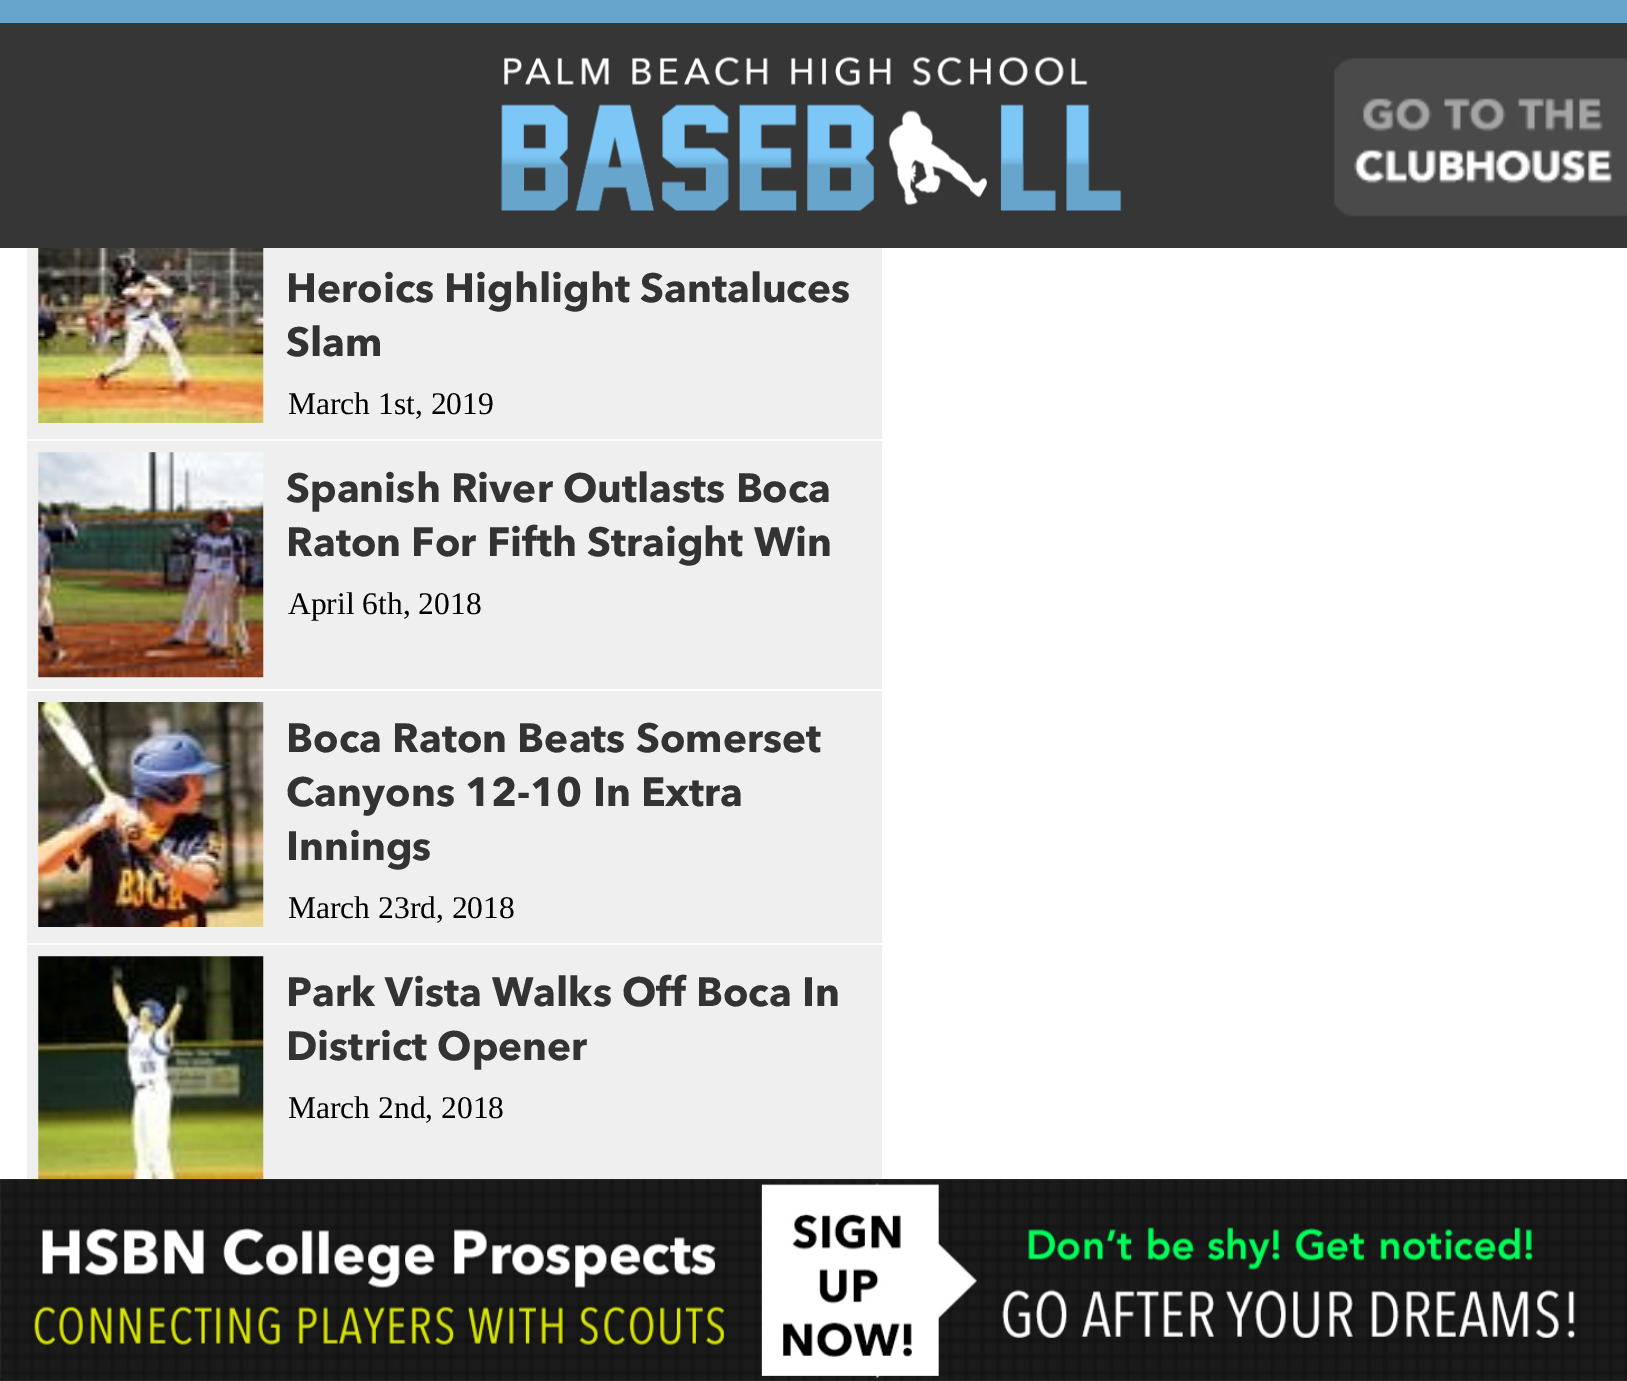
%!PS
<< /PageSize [1627 1381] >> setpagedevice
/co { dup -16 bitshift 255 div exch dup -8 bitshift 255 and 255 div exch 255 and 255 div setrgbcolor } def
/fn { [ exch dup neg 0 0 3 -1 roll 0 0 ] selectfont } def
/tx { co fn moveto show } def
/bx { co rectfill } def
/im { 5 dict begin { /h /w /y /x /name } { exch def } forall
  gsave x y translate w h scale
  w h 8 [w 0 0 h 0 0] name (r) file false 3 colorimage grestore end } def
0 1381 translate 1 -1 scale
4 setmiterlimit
0 0 1627 1381 16#FFFFFF bx
0 23 1627 225 16#363636 bx
0 0 1627 23 16#67A5CC bx
(media/1.raw) 501 56 621 155 im
(media/2.raw) 1334 58 293 159 im
27 248 855 191 16#EFEFEF bx
(media/3.raw) 38 248 226 175 im
27 441 855 248 16#EFEFEF bx
(media/4.raw) 38 452 226 226 im
27 691 855 252 16#EFEFEF bx
(media/5.raw) 38 702 226 225 im
27 945 855 234 16#EFEFEF bx
(media/6.raw) 38 956 226 223 im
(media/7.raw) 0 1179 1627 202 im
(Heroics Highlight Santaluces) 286 302 /AvenirNext-Bold 40.5 16#333333 tx
(Slam) 286 356 /AvenirNext-Bold 40.5 16#333333 tx
(March 1st, 2019) 288 414 /LiberationSerif-Regular 31.5 16#000000 tx
(Spanish River Outlasts Boca) 286 502 /AvenirNext-Bold 40.5 16#333333 tx
(Raton For Fifth Straight Win) 286 556 /AvenirNext-Bold 40.5 16#333333 tx
(April 6th, 2018) 288 614 /LiberationSerif-Regular 31.5 16#000000 tx
(Boca Raton Beats Somerset) 286 752 /AvenirNext-Bold 40.5 16#333333 tx
(Canyons 12-10 In Extra) 286 806 /AvenirNext-Bold 40.5 16#333333 tx
(Innings) 286 860 /AvenirNext-Bold 40.5 16#333333 tx
(March 23rd, 2018) 288 918 /LiberationSerif-Regular 31.5 16#000000 tx
(Park Vista Walks Off Boca In) 286 1006 /AvenirNext-Bold 40.5 16#333333 tx
(District Opener) 286 1060 /AvenirNext-Bold 40.5 16#333333 tx
(March 2nd, 2018) 288 1118 /LiberationSerif-Regular 31.5 16#000000 tx
showpage
